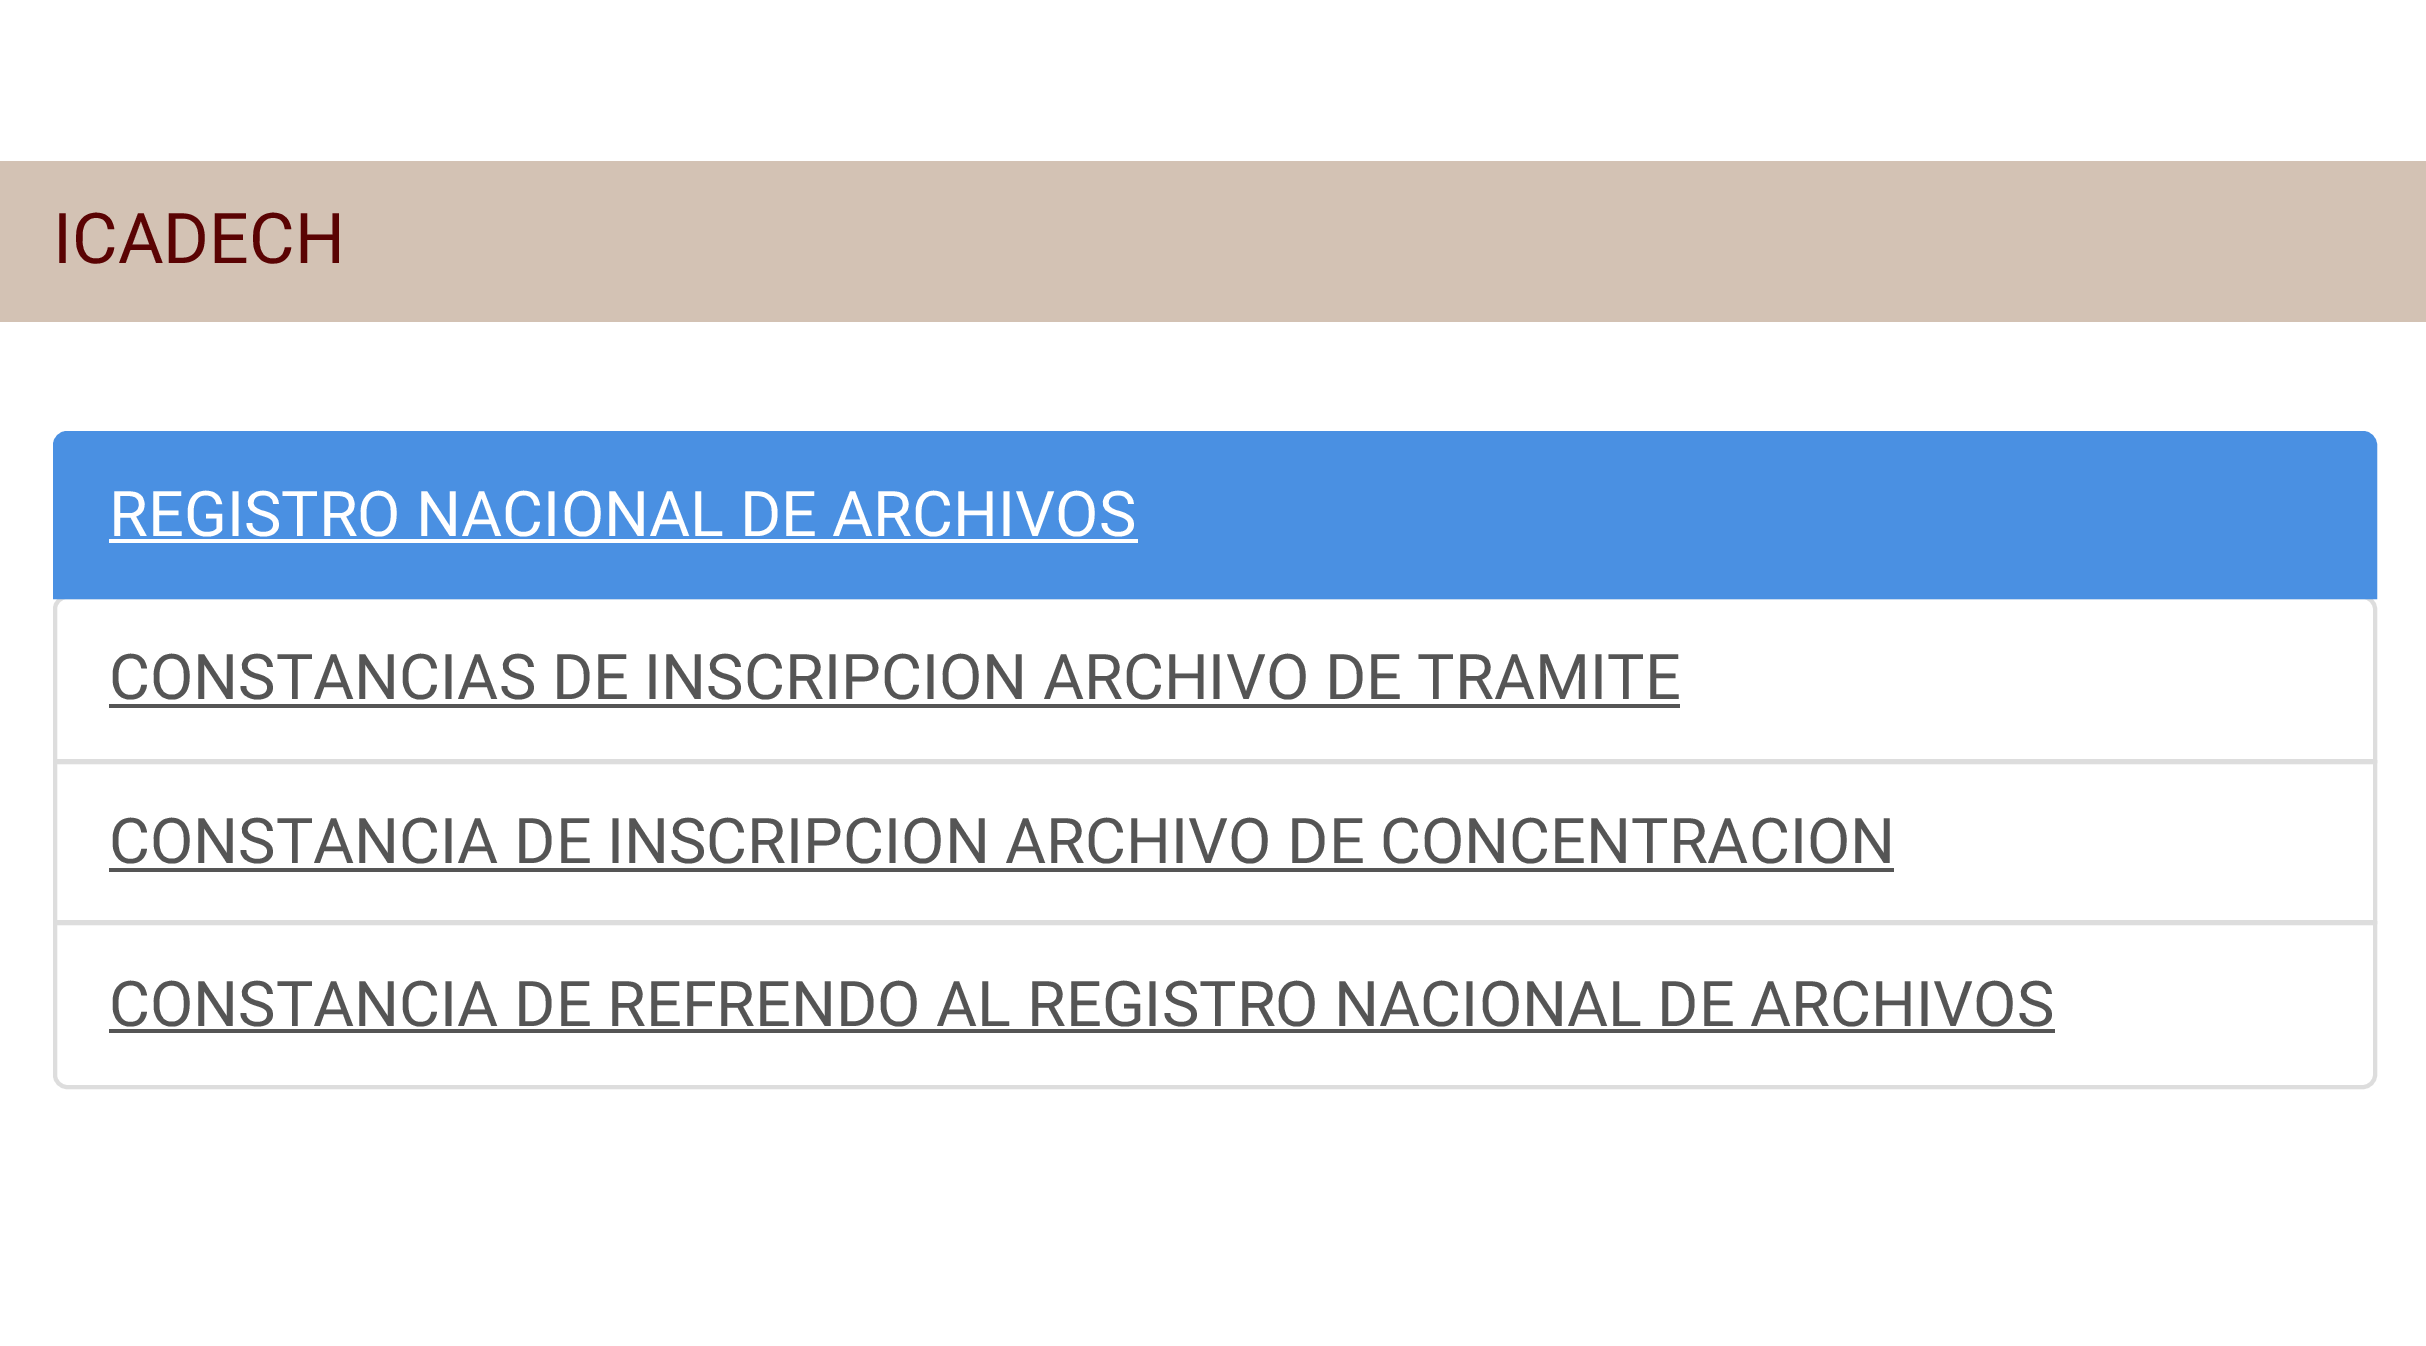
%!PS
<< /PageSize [2426 1346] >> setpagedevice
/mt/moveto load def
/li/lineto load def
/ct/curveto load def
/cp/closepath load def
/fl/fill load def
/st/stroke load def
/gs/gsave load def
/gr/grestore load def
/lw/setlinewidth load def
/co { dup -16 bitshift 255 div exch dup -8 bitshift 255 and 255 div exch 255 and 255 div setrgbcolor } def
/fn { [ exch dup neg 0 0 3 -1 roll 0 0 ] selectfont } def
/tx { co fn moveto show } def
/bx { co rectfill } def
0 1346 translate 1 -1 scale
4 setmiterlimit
0 0 2426 1346 16#FFFFFF bx
0 161 2426 161 16#D3C2B4 bx
16#DDDDDD co
4 lw
67 597 mt 2363 597 li 2369.5 597 2375 602.5 2375 609 ct 2375 761 li 55 761 li 55 609 li 55 602.5 60.5 597 67 597 ct cp st
16#4A90E2 co
67 433 mt 2363 433 li 2369.5 433 2375 438.5 2375 445 ct 2375 597 li 55 597 li 55 445 li 55 438.5 60.5 433 67 433 ct cp gs fl gr
st
109 539 1029 4 16#FFFFFF bx
109 704 1571 4 16#555555 bx
16#DDDDDD co
55 762 2320 160 rectstroke
109 868 1785 4 16#555555 bx
16#FFFFFF co
55 923 mt 2375 923 li 2375 1075 li 2375 1081.5 2369.5 1087 2363 1087 ct 67 1087 li 60.5 1087 55 1081.5 55 1075 ct cp gs fl gr
16#DDDDDD co
st
109 1029 1946 4 16#555555 bx
(ICADECH) 53 263 /Roboto-Regular 70 16#5A0303 tx
(REGISTRO NACIONAL DE ARCHIVOS) 109 536 /Roboto-Regular 63 16#FFFFFF tx
(CONSTANCIAS DE INSCRIPCION ARCHIVO DE TRAMITE) 109 699 /Roboto-Regular 63 16#555555 tx
(CONSTANCIA DE INSCRIPCION ARCHIVO DE CONCENTRACION) 109 863 /Roboto-Regular 63 16#555555 tx
(CONSTANCIA DE REFRENDO AL REGISTRO NACIONAL DE ARCHIVOS) 109 1026 /Roboto-Regular 63 16#555555 tx
showpage
